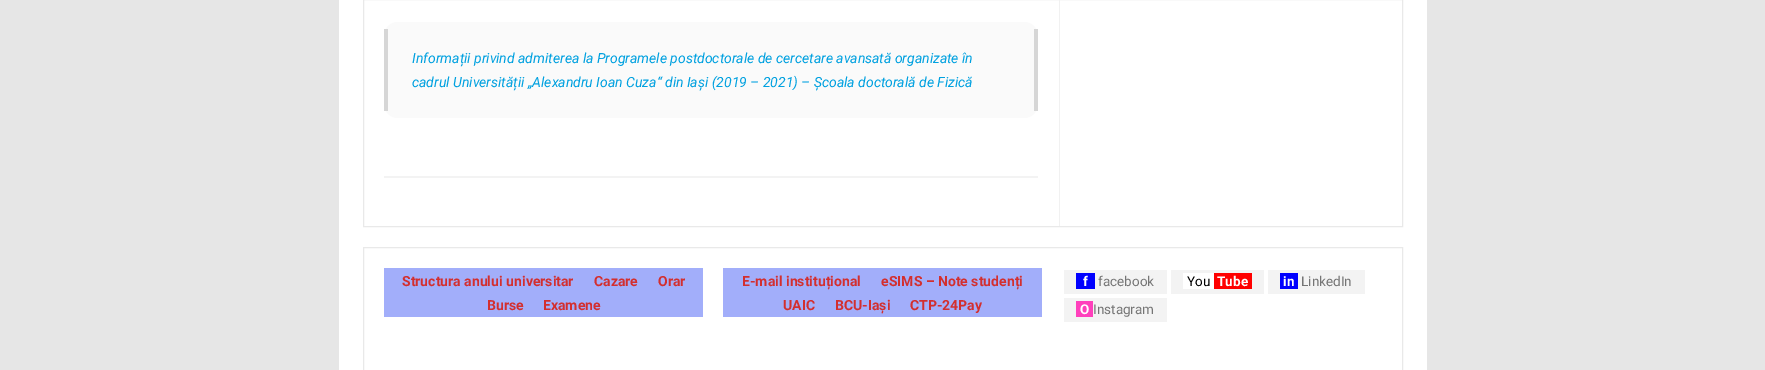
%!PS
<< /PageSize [1765 370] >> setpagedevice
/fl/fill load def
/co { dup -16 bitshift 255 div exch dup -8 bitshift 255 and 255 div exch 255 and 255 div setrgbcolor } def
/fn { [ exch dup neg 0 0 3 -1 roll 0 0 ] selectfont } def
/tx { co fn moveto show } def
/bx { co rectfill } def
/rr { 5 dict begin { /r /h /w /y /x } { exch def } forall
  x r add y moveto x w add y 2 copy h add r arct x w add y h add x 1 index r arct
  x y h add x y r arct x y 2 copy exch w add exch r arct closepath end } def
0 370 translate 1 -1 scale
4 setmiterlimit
0 0 1765 370 16#E6E6E6 bx
339 0 1088 370 16#FFFFFF bx
16#E9E9E9 co
363.5 -.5 1039 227 rectstroke
1059 0 1 226 16#F1F1F1 bx
384 176 654 2 16#F3F3F3 bx
16#FAFAFA co
384 22 654 96 14 rr fl
1034 29 4 82 16#D6D6D6 bx
384 29 4 82 16#D6D6D6 bx
16#E9E9E9 co
363.5 247.5 1039 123 rectstroke
384 268 319 49 16#A2AEFA bx
723 268 319 49 16#A2AEFA bx
1064 270 103 24 16#F3F3F3 bx
1076 273 19 16 16#0000FF bx
1171 270 93 24 16#F3F3F3 bx
1183 273 31 16 16#FFFFFF bx
1214 273 38 16 16#FF0000 bx
1268 270 97 24 16#F3F3F3 bx
1280 273 18 16 16#0000FF bx
1064 298 103 24 16#F3F3F3 bx
1076 301 17 16 16#FF40BC bx
(Informații privind admiterea la Programele postdoctorale de cercetare avansată organizate în) 412 63 /Roboto-Italic 14 16#00A1E0 tx
(cadrul Universității „Alexandru Ioan Cuza“ din Iași \(2019 – 2021\) – Școala doctorală de Fizică) 412 87 /Roboto-Italic 14 16#00A1E0 tx
(Structura anului universitar) 402 286 /Roboto-Bold 14 16#D32F2F tx
(Cazare) 594 286 /Roboto-Bold 14 16#D32F2F tx
(Orar) 658 286 /Roboto-Bold 14 16#D32F2F tx
(Burse) 487 310 /Roboto-Bold 14 16#D32F2F tx
(Examene) 543 310 /Roboto-Bold 14 16#D32F2F tx
(E-mail instituțional) 742 286 /Roboto-Bold 14 16#D32F2F tx
(eSIMS – Note studenți) 881 286 /Roboto-Bold 14 16#D32F2F tx
(UAIC) 783 310 /Roboto-Bold 14 16#D32F2F tx
(BCU-Iași) 835 310 /Roboto-Bold 14 16#D32F2F tx
(CTP-24Pay) 910 310 /Roboto-Bold 14 16#D32F2F tx
(f) 1083 286 /Roboto-Bold 13.5 16#FFFFFF tx
(facebook) 1098 286 /Roboto-Regular 13.5 16#757575 tx
(You) 1187 286 /Roboto-Regular 13.5 16#000000 tx
(Tube) 1217 286 /Roboto-Bold 13.5 16#FFFFFF tx
(in) 1283 286 /Roboto-Bold 13.5 16#FFFFFF tx
(LinkedIn) 1301 286 /Roboto-Regular 13.5 16#757575 tx
(O) 1080 314 /Roboto-Bold 13.5 16#FFFFFF tx
(Instagram) 1093 314 /Roboto-Regular 13.5 16#757575 tx
showpage
